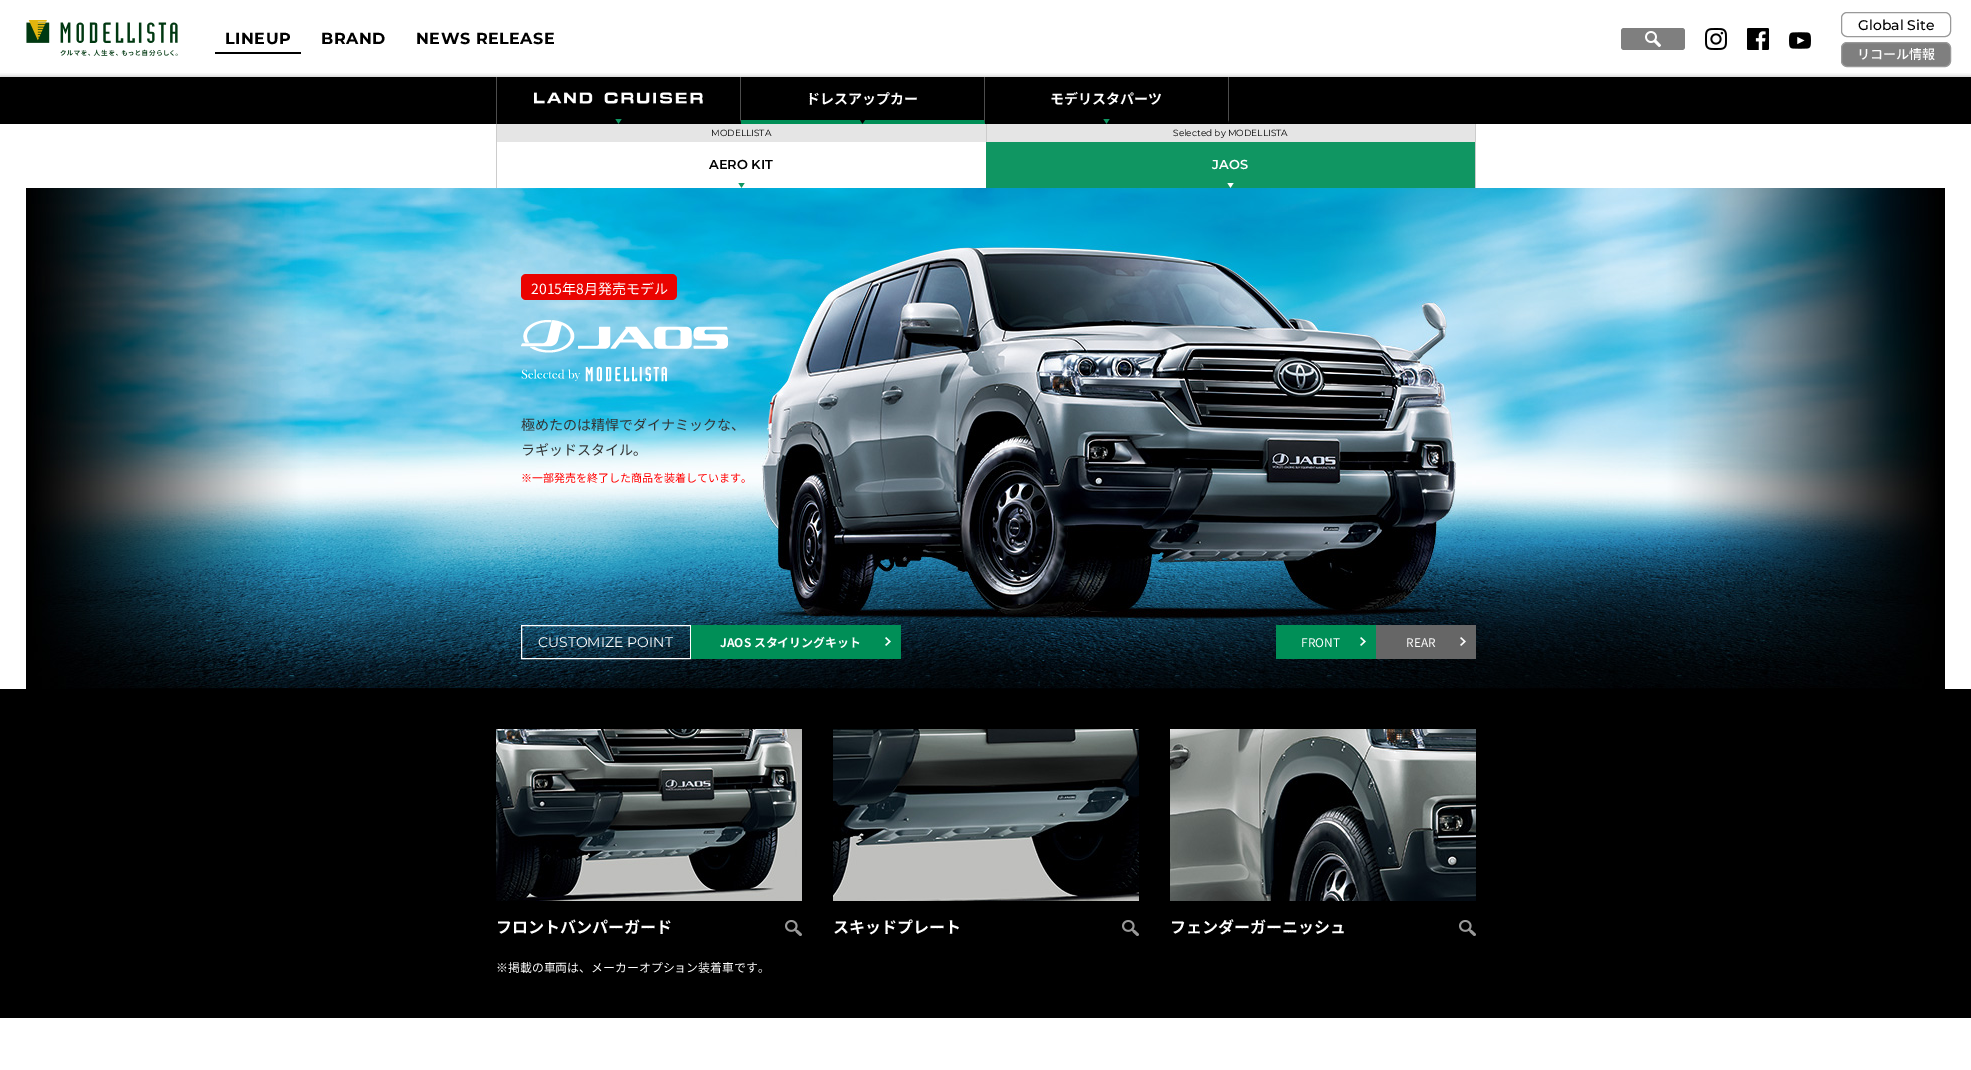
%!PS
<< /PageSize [1971 1070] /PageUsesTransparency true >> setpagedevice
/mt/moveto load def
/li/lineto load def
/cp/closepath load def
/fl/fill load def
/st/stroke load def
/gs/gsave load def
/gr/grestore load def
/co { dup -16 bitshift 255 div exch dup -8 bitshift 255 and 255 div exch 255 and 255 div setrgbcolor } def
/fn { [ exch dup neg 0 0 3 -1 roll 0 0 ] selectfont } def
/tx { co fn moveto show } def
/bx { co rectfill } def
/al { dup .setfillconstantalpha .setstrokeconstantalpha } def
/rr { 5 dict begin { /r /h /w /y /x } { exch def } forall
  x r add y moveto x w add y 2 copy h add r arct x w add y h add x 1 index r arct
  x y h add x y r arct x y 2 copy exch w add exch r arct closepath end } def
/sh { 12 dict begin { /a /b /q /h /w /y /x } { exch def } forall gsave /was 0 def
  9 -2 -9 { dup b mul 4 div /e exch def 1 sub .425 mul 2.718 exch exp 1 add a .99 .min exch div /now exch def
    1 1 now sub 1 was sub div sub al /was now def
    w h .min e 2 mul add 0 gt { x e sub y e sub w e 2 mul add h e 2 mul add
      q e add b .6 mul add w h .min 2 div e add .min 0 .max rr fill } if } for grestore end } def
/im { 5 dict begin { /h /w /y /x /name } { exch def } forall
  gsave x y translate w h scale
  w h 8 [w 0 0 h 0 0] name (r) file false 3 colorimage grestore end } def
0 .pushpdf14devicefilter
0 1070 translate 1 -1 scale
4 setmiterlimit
0 0 1971 1070 16#FFFFFF bx
(media/1.raw) 26 20 152 36 im
215 52 86 2 16#000000 bx
16#7F7F7F co
1621 28 64 22 3 rr fl
(media/2.raw) 1645 31 16 16 im
(media/3.raw) 1705 28 22 22 im
(media/4.raw) 1747 28 22 22 im
(media/5.raw) 1789 32 22 17 im
16#999999 co
1841.5 12.5 109 24 5.5 rr st
16#7F7F7F co
1841.5 42.5 109 24 5.5 rr gs fl gr
16#999999 co
st
gs
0 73 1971 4 rectclip
16#000000 co
0 77 1971 111 0 2.5 .3 sh
gr
0 77 1971 47 16#000000 bx
496 77 1 47 16#4D4D4D bx
741 77 mt 741 124 li 740 120 li 740 77 li cp fl
16#000000 co
741 124 mt 497 124 li 497 120 li 740 120 li cp fl
(media/6.raw) 534 92 169 12 im
(media/7.raw) 615 119 7 5 im
16#4D4D4D co
985 77 mt 985 124 li 984 120 li 984 77 li cp fl
16#008F57 co
985 124 mt 741 124 li 741 120 li 984 120 li cp fl
(media/8.raw) 860 120 5 4 im
16#4D4D4D co
1229 77 mt 1229 124 li 1228 120 li 1228 77 li cp fl
16#000000 co
1229 124 mt 985 124 li 985 120 li 1228 120 li cp fl
(media/7.raw) 1103 119 7 5 im
497 124 978 18 16#E5E5E5 bx
1475 124 1 64 16#CCCCCC bx
496 124 1 64 16#CCCCCC bx
986 124 1 18 16#CCCCCC bx
(media/9.raw) 738 183 7 5 im
986 142 489 46 16#109662 bx
(media/10.raw) 1227 183 7 5 im
0 689 1971 329 16#000000 bx
0 188 1971 5 16#FFFFFF bx
(media/11.raw) 26 188 1919 501 im
(media/12.raw) 496 188 980 500 im
16#EA0300 co
521 274 156 26 5 rr fl
(media/13.raw) 521 320 207 62 im
16#FFFFFF co
521.5 625.5 169 33 rectstroke
691 625 210 34 16#008F57 bx
(media/14.raw) 885 637 6 9 im
1276 625 100 34 16#008F57 bx
(media/14.raw) 1360 637 6 9 im
1376 625 100 34 16#666666 bx
(media/15.raw) 1460 637 6 9 im
(media/16.raw) 496 729 306 172 im
(media/17.raw) 785 920 17 16 im
(media/18.raw) 833 729 306 172 im
(media/17.raw) 1122 920 17 16 im
(media/19.raw) 1170 729 306 172 im
(media/17.raw) 1459 920 17 16 im
/Montserrat-Bold 16 fn
16#000000 co
225 44 mt .5 0 (LINEUP) ashow
321 44 mt .5 0 (BRAND) ashow
416 44 mt .5 0 (NEWS RELEASE) ashow
(Global Site) 1858 30 /Montserrat-Medium 14 16#000000 tx
(リコール情報) 1857 59 /NotoSansJP-Medium 13 16#FFFFFF tx
(ドレスアップカー) 806 104 /NotoSansJP-Bold 14 16#FFFFFF tx
(モデリスタパーツ) 1050 104 /NotoSansJP-Bold 14 16#FFFFFF tx
(MODELLISTA) 711 136 /Montserrat-Regular 9 16#000000 tx
(Selected by MODELLISTA) 1173 136 /Montserrat-Regular 9 16#000000 tx
(AERO KIT) 709 169 /Montserrat-SemiBold 13 16#000000 tx
(JAOS) 1212 169 /Montserrat-SemiBold 13 16#FFFFFF tx
(2015年8月発売モデル) 531 294 /NotoSansJP-Regular 14 16#FFFFFF tx
(極めたのは精悍でダイナミックな、) 521 430 /NotoSansJP-Regular 14 16#333333 tx
(ラギッドスタイル。) 521 455 /NotoSansJP-Regular 14 16#333333 tx
(※一部発売を終了した商品を装着しています。) 521 482 /NotoSansJP-Regular 11 16#FF0000 tx
(CUSTOMIZE POINT) 538 647 /Montserrat-Regular 14 16#FFFFFF tx
(JAOS スタイリングキット) 720 647 /NotoSansJP-Bold 11.9 16#FFFFFF tx
(FRONT) 1301 647 /NotoSansJP-Regular 11.9 16#FFFFFF tx
(REAR) 1406 647 /NotoSansJP-Regular 11.9 16#FFFFFF tx
(フロントバンパーガード) 496 933 /NotoSansJP-Bold 16 16#FFFFFF tx
(スキッドプレート) 833 933 /NotoSansJP-Bold 16 16#FFFFFF tx
(フェンダーガーニッシュ) 1170 933 /NotoSansJP-Bold 16 16#FFFFFF tx
(※掲載の車両は、メーカーオプション装着車です。) 496 972 /NotoSansJP-Regular 11.9 16#FFFFFF tx
.poppdf14devicefilter showpage
